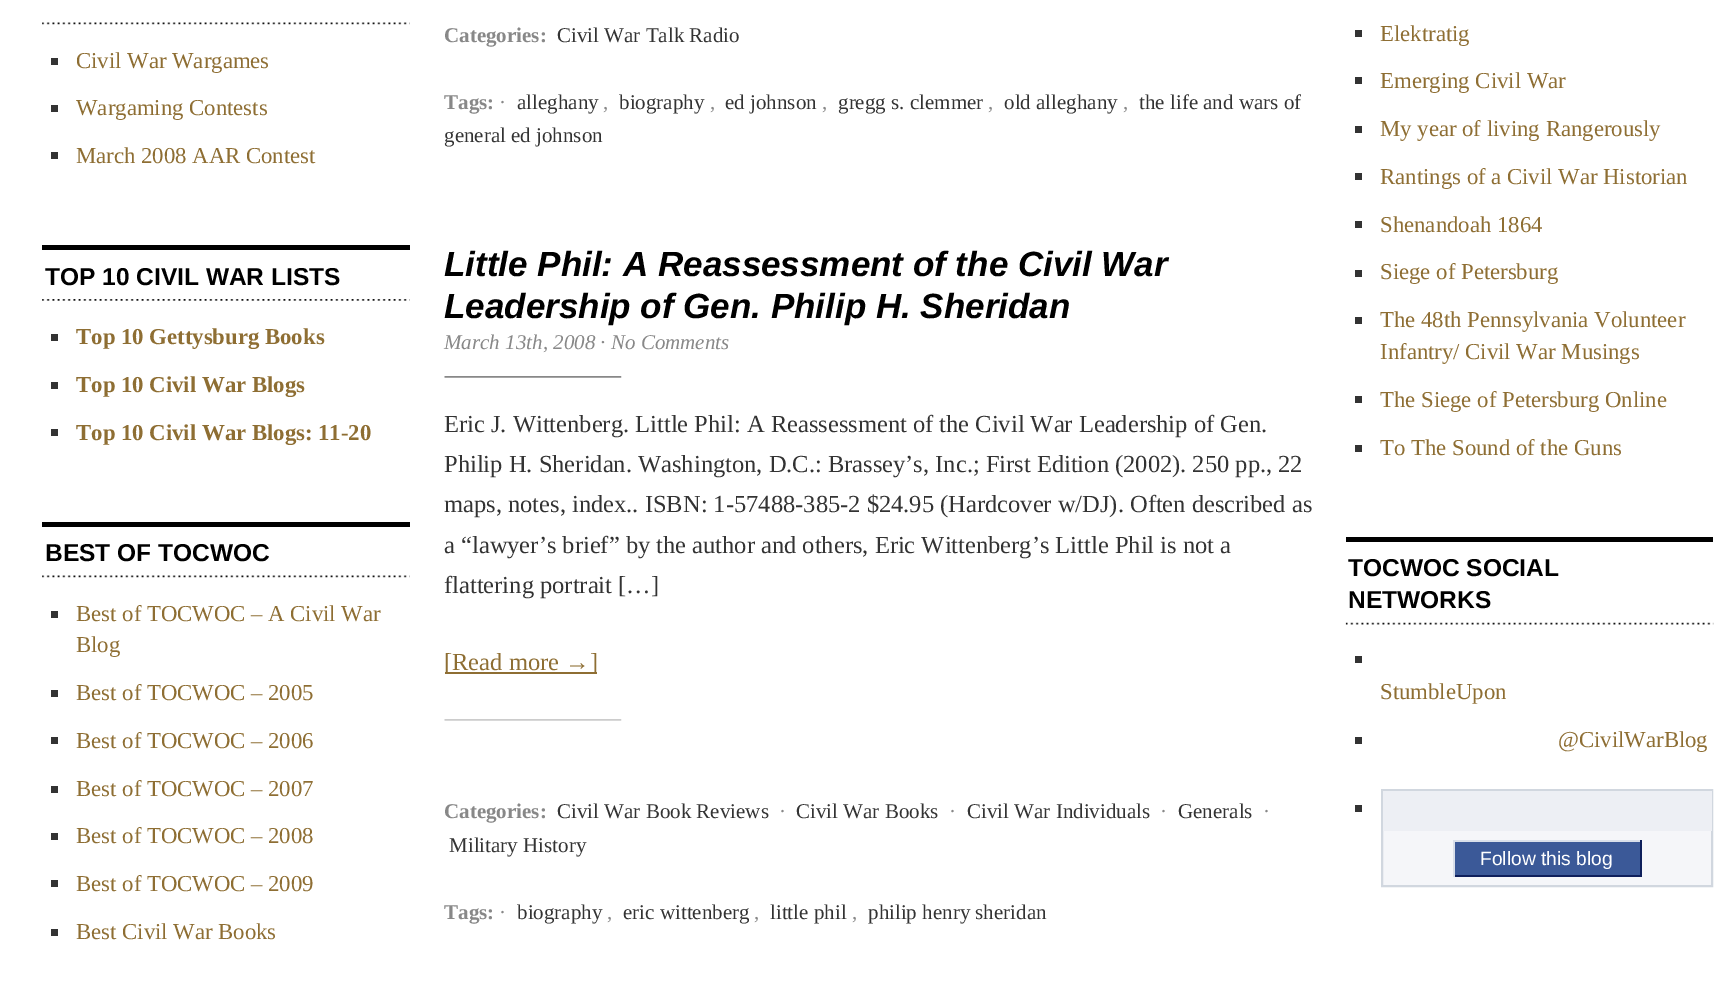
%!PS
<< /PageSize [1726 1004] >> setpagedevice
/lw/setlinewidth load def
/co { dup -16 bitshift 255 div exch dup -8 bitshift 255 and 255 div exch 255 and 255 div setrgbcolor } def
/fn { [ exch dup neg 0 0 3 -1 roll 0 0 ] selectfont } def
/tx { co fn moveto show } def
/bx { co rectfill } def
/im { 5 dict begin { /h /w /y /x /name } { exch def } forall
  gsave x y translate w h scale
  w h 8 [w 0 0 h 0 0] name (r) file false 3 colorimage grestore end } def
0 1004 translate 1 -1 scale
4 setmiterlimit
0 0 1726 1004 16#FFFFFF bx
(media/1.raw) 42 22 368 3 im
51 58 7 7 16#333333 bx
51 105 7 7 16#333333 bx
51 152 7 7 16#333333 bx
(media/2.raw) 42 299 368 2 im
42 245 368 5 16#000000 bx
51 334 7 7 16#333333 bx
51 382 7 7 16#333333 bx
51 429 7 7 16#333333 bx
(media/1.raw) 42 575 368 3 im
42 522 368 5 16#000000 bx
51 611 7 7 16#333333 bx
51 690 7 7 16#333333 bx
51 737 7 7 16#333333 bx
51 786 7 7 16#333333 bx
51 833 7 7 16#333333 bx
51 880 7 7 16#333333 bx
51 929 7 7 16#333333 bx
(media/3.raw) 444 376 178 2 im
445 672 152 2 16#8E6E33 bx
(media/4.raw) 444 719 178 2 im
1355 30 7 7 16#333333 bx
1355 77 7 7 16#333333 bx
1355 126 7 7 16#333333 bx
1355 173 7 7 16#333333 bx
1355 221 7 7 16#333333 bx
1355 270 7 7 16#333333 bx
1355 317 7 7 16#333333 bx
1355 396 7 7 16#333333 bx
1355 445 7 7 16#333333 bx
(media/5.raw) 1345 622 369 3 im
1346 537 367 5 16#000000 bx
1355 656 7 7 16#333333 bx
1355 737 7 7 16#333333 bx
1355 805 7 7 16#333333 bx
1383 831 328 54 16#F5F6F9 bx
16#D1D7DF co
2 lw
1382 790 330 96 rectstroke
1383 791 329 40 16#EDEFF4 bx
1455 842 185 33 16#3B5998 bx
1453 840 189 2 16#D9DFEA bx
1640 840 2 37 16#0E1F5B bx
1453 875 189 2 16#0E1F5B bx
1453 840 2 37 16#D9DFEA bx
(Civil War Wargames) 76 68 /LiberationSerif-Regular 22.75 16#8E6E33 tx
(Wargaming Contests) 76 115 /LiberationSerif-Regular 22.75 16#8E6E33 tx
(March 2008 AAR Contest) 76 163 /LiberationSerif-Regular 22.75 16#8E6E33 tx
(TOP 10 CIVIL WAR LISTS) 45 285 /LiberationSans-Bold 24.5 16#000000 tx
(Top 10 Gettysburg Books) 76 344 /LiberationSerif-Bold 22.75 16#8E6E33 tx
(Top 10 Civil War Blogs) 76 392 /LiberationSerif-Bold 22.75 16#8E6E33 tx
(Top 10 Civil War Blogs: 11-20) 76 440 /LiberationSerif-Bold 22.75 16#8E6E33 tx
(BEST OF TOCWOC) 45 561 /LiberationSans-Bold 24.5 16#000000 tx
(Best of TOCWOC – A Civil War) 76 621 /LiberationSerif-Regular 22.75 16#8E6E33 tx
(Blog) 76 652 /LiberationSerif-Regular 22.75 16#8E6E33 tx
(Best of TOCWOC – 2005) 76 700 /LiberationSerif-Regular 22.75 16#8E6E33 tx
(Best of TOCWOC – 2006) 76 748 /LiberationSerif-Regular 22.75 16#8E6E33 tx
(Best of TOCWOC – 2007) 76 796 /LiberationSerif-Regular 22.75 16#8E6E33 tx
(Best of TOCWOC – 2008) 76 843 /LiberationSerif-Regular 22.75 16#8E6E33 tx
(Best of TOCWOC – 2009) 76 891 /LiberationSerif-Regular 22.75 16#8E6E33 tx
(Best Civil War Books) 76 939 /LiberationSerif-Regular 22.75 16#8E6E33 tx
(Categories:) 444 42 /LiberationSerif-Bold 21 16#888888 tx
(Civil War Talk Radio) 557 42 /LiberationSerif-Regular 21 16#333333 tx
(Tags:) 444 109 /LiberationSerif-Bold 21 16#888888 tx
(·) 499 109 /LiberationSerif-Regular 21 16#888888 tx
(alleghany) 517 109 /LiberationSerif-Regular 21 16#333333 tx
(biography) 619 109 /LiberationSerif-Regular 21 16#333333 tx
(ed johnson) 725 109 /LiberationSerif-Regular 21 16#333333 tx
(gregg s. clemmer) 838 109 /LiberationSerif-Regular 21 16#333333 tx
(old alleghany) 1004 109 /LiberationSerif-Regular 21 16#333333 tx
(the life and wars of) 1139 109 /LiberationSerif-Regular 21 16#333333 tx
(,) 603 109 /LiberationSerif-Regular 21 16#888888 tx
(,) 710 109 /LiberationSerif-Regular 21 16#888888 tx
(,) 822 109 /LiberationSerif-Regular 21 16#888888 tx
(,) 988 109 /LiberationSerif-Regular 21 16#888888 tx
(,) 1123 109 /LiberationSerif-Regular 21 16#888888 tx
(general ed johnson) 444 142 /LiberationSerif-Regular 21 16#333333 tx
(Little Phil: A Reassessment of the Civil War) 444 276 /LiberationSans-BoldItalic 35 16#000000 tx
(Leadership of Gen. Philip H. Sheridan) 444 318 /LiberationSans-BoldItalic 35 16#000000 tx
(March 13th, 2008 · No Comments) 444 349 /LiberationSerif-Italic 21 16#888888 tx
(Eric J. Wittenberg. Little Phil: A Reassessment of the Civil War Leadership of Gen.) 444 432 /LiberationSerif-Regular 24.5 16#333333 tx
(Philip H. Sheridan. Washington, D.C.: Brassey’s, Inc.; First Edition \(2002\). 250 pp., 22) 444 472 /LiberationSerif-Regular 24.5 16#333333 tx
(maps, notes, index.. ISBN: 1-57488-385-2 $24.95 \(Hardcover w/DJ\). Often described as) 444 512 /LiberationSerif-Regular 24.5 16#333333 tx
(a “lawyer’s brief” by the author and others, Eric Wittenberg’s Little Phil is not a) 444 553 /LiberationSerif-Regular 24.5 16#333333 tx
(flattering portrait […]) 444 593 /LiberationSerif-Regular 24.5 16#333333 tx
([Read more →]) 444 670 /LiberationSerif-Regular 24.5 16#8E6E33 tx
(Categories:) 444 818 /LiberationSerif-Bold 21 16#888888 tx
(Civil War Book Reviews) 557 818 /LiberationSerif-Regular 21 16#333333 tx
(·) 779 818 /LiberationSerif-Regular 21 16#888888 tx
(Civil War Books) 796 818 /LiberationSerif-Regular 21 16#333333 tx
(·) 949 818 /LiberationSerif-Regular 21 16#888888 tx
(Civil War Individuals) 967 818 /LiberationSerif-Regular 21 16#333333 tx
(·) 1160 818 /LiberationSerif-Regular 21 16#888888 tx
(Generals) 1178 818 /LiberationSerif-Regular 21 16#333333 tx
(·) 1263 818 /LiberationSerif-Regular 21 16#888888 tx
(Military History) 449 852 /LiberationSerif-Regular 21 16#333333 tx
(Tags:) 444 919 /LiberationSerif-Bold 21 16#888888 tx
(·) 499 919 /LiberationSerif-Regular 21 16#888888 tx
(biography) 517 919 /LiberationSerif-Regular 21 16#333333 tx
(eric wittenberg) 623 919 /LiberationSerif-Regular 21 16#333333 tx
(little phil) 770 919 /LiberationSerif-Regular 21 16#333333 tx
(philip henry sheridan) 868 919 /LiberationSerif-Regular 21 16#333333 tx
(,) 607 919 /LiberationSerif-Regular 21 16#888888 tx
(,) 754 919 /LiberationSerif-Regular 21 16#888888 tx
(,) 852 919 /LiberationSerif-Regular 21 16#888888 tx
(Elektratig) 1380 41 /LiberationSerif-Regular 22.75 16#8E6E33 tx
(Emerging Civil War) 1380 88 /LiberationSerif-Regular 22.75 16#8E6E33 tx
(My year of living Rangerously) 1380 136 /LiberationSerif-Regular 22.75 16#8E6E33 tx
(Rantings of a Civil War Historian) 1380 184 /LiberationSerif-Regular 22.75 16#8E6E33 tx
(Shenandoah 1864) 1380 232 /LiberationSerif-Regular 22.75 16#8E6E33 tx
(Siege of Petersburg) 1380 279 /LiberationSerif-Regular 22.75 16#8E6E33 tx
(The 48th Pennsylvania Volunteer) 1380 327 /LiberationSerif-Regular 22.75 16#8E6E33 tx
(Infantry/ Civil War Musings) 1380 359 /LiberationSerif-Regular 22.75 16#8E6E33 tx
(The Siege of Petersburg Online) 1380 407 /LiberationSerif-Regular 22.75 16#8E6E33 tx
(To The Sound of the Guns) 1380 455 /LiberationSerif-Regular 22.75 16#8E6E33 tx
(TOCWOC SOCIAL) 1348 576 /LiberationSans-Bold 24.5 16#000000 tx
(NETWORKS) 1348 608 /LiberationSans-Bold 24.5 16#000000 tx
(StumbleUpon) 1380 699 /LiberationSerif-Regular 22.75 16#8E6E33 tx
(@CivilWarBlog) 1558 747 /LiberationSerif-Regular 22.75 16#8E6E33 tx
(Follow this blog) 1480 865 /LiberationSans-Regular 19.25 16#FFFFFF tx
showpage
